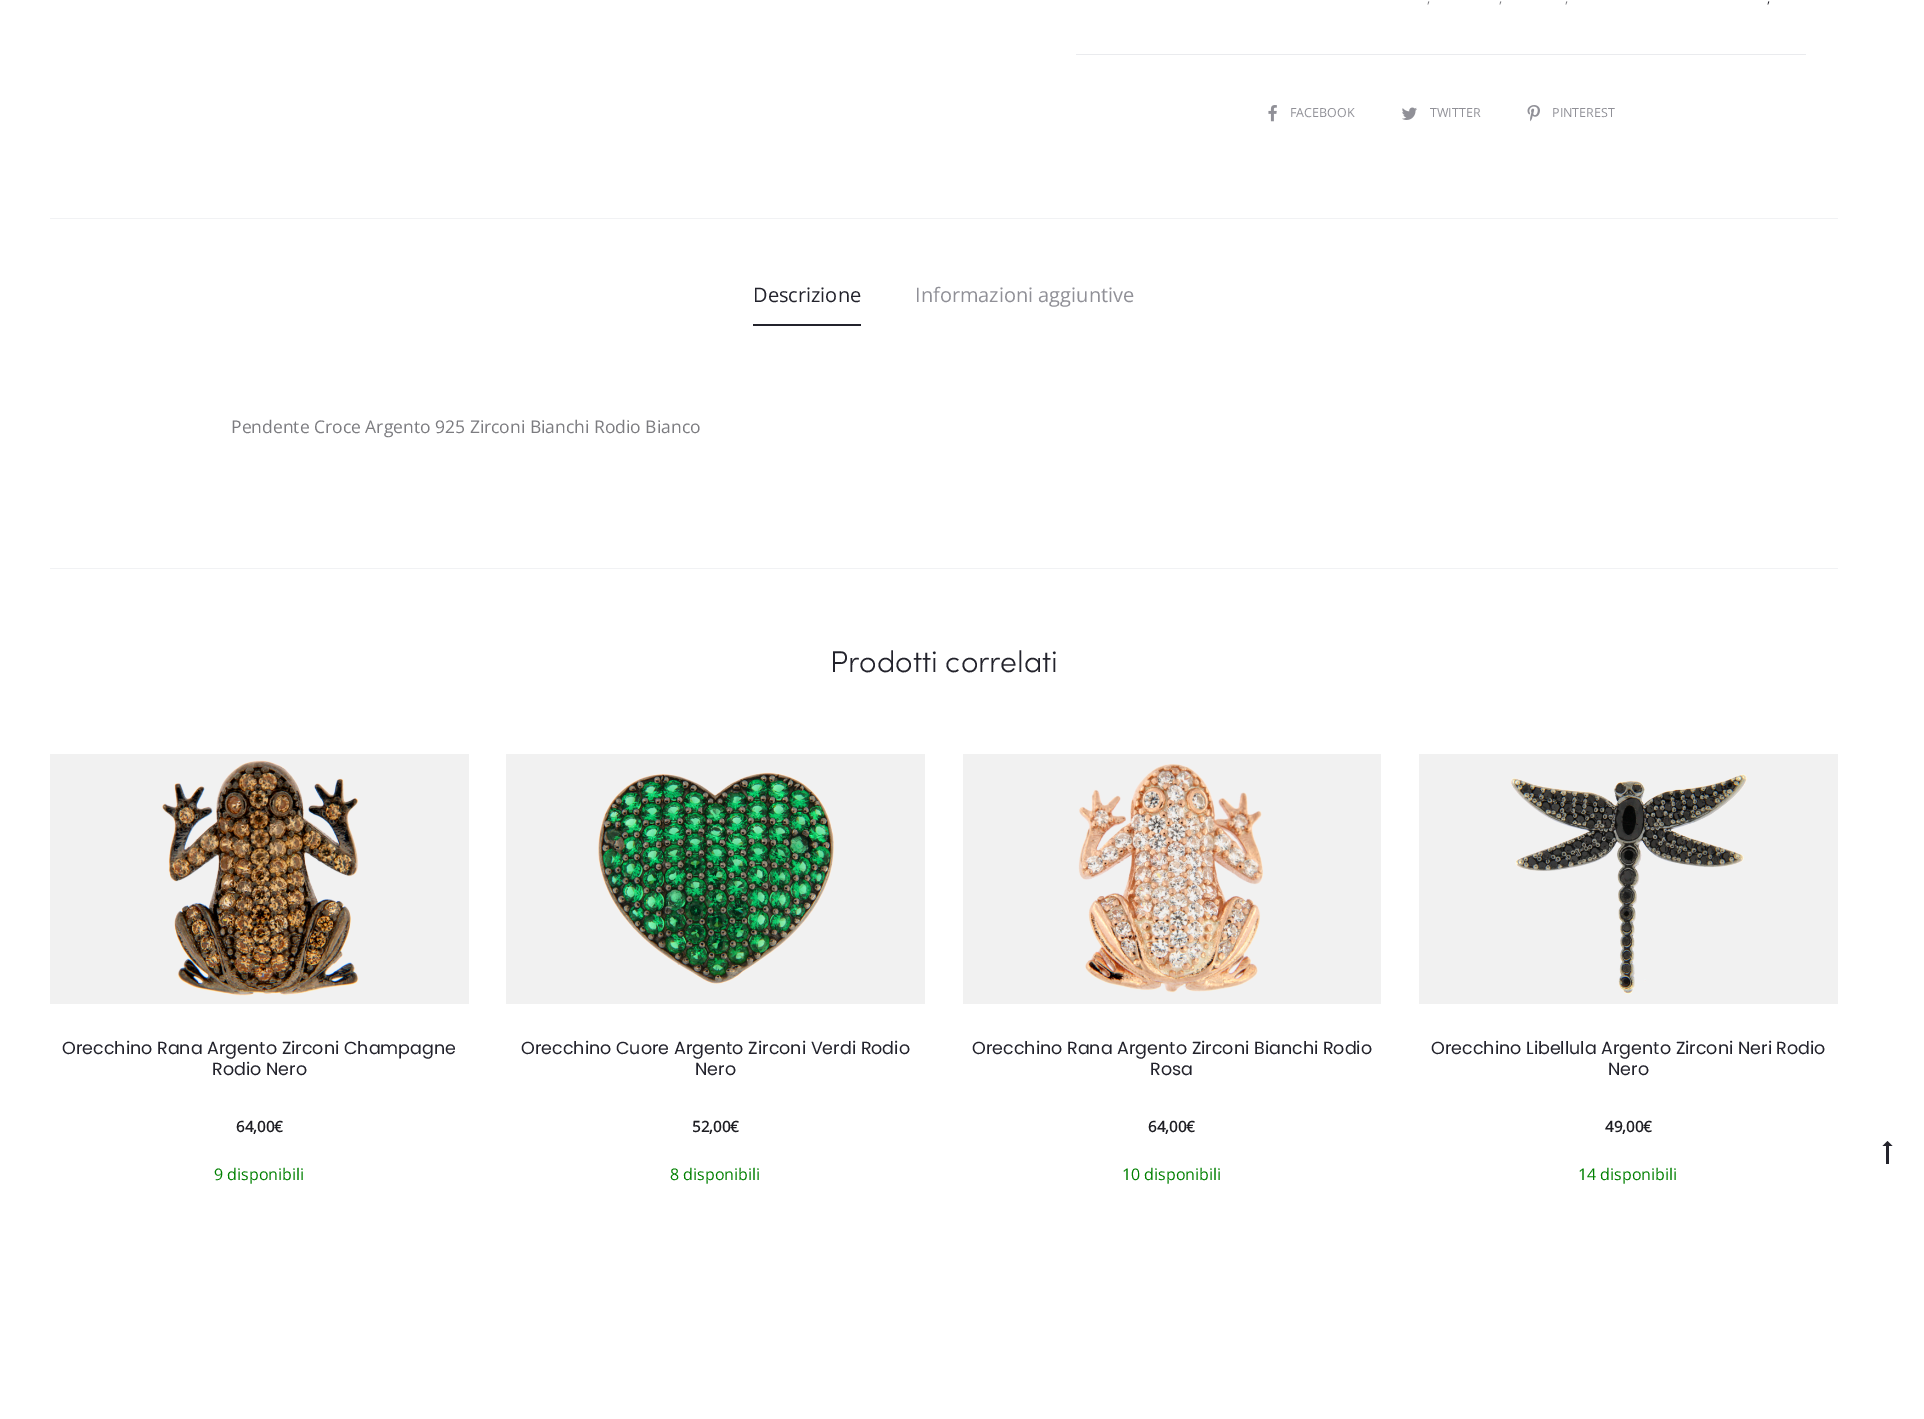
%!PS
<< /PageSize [1924 1419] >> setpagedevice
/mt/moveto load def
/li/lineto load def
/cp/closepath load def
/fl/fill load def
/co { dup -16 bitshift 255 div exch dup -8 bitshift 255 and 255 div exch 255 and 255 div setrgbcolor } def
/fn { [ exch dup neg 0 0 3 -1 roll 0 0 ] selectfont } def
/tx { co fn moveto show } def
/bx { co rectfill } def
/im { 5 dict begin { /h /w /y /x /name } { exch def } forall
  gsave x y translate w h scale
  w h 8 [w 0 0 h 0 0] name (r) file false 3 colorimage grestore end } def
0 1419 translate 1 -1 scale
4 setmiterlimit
0 0 1924 1419 16#FFFFFF bx
1076 54 730 1 16#EAEBEE bx
(media/1.raw) 1268 105 9 17 im
(media/2.raw) 1402 107 15 13 im
(media/3.raw) 1527 105 13 17 im
50 218 1788 1 16#F1F2F4 bx
753 324 108 2 16#23232C bx
50 568 1788 1 16#F1F2F4 bx
50 754 419 250 16#F1F1F1 bx
(media/4.raw) 162 760 197 236 im
506 754 419 250 16#F1F1F1 bx
(media/5.raw) 598 772 236 212 im
963 754 418 250 16#F1F1F1 bx
(media/6.raw) 1078 764 185 229 im
1419 754 419 250 16#F1F1F1 bx
(media/7.raw) 1511 774 236 220 im
16#23232C co
1886 1146 mt 1886 1164 li 1889 1164 li 1889 1146 li 1892.5 1146 li 1887.5 1141 li 1882.5 1146 li cp fl
(,) 1427 3 /OpenSans-Regular 12.5 16#7C7C80 tx
(,) 1499 3 /OpenSans-Regular 12.5 16#7C7C80 tx
(,) 1565 3 /OpenSans-Regular 12.5 16#7C7C80 tx
(,) 1767 3 /OpenSans-Regular 12.5 16#23232C tx
(FACEBOOK) 1290 117 /OpenSans-Regular 12.5 16#909097 tx
(TWITTER) 1430 117 /OpenSans-Regular 12.5 16#909097 tx
(PINTEREST) 1552 117 /OpenSans-Regular 12.5 16#909097 tx
(Descrizione) 753 302 /OpenSans-Regular 20 16#23232C tx
(Informazioni aggiuntive) 915 302 /OpenSans-Regular 20 16#909097 tx
(Pendente Croce Argento 925 Zirconi Bianchi Rodio Bianco) 231 433 /OpenSans-Regular 17.5 16#7C7C80 tx
(Prodotti correlati) 830 672 /Sofia-Light 30 16#23232C tx
(Orecchino Rana Argento Zirconi Champagne) 62 1054 /Poppins-Regular 17.5 16#23232C tx
(Rodio Nero) 212 1075 /Poppins-Regular 17.5 16#23232C tx
(64,00€) 236 1132 /OpenSans-Bold 15 16#1E1E23 tx
(9 disponibili) 214 1180 /OpenSans-Regular 16 16#008000 tx
(Orecchino Cuore Argento Zirconi Verdi Rodio) 521 1054 /Poppins-Regular 17.5 16#23232C tx
(Nero) 695 1075 /Poppins-Regular 17.5 16#23232C tx
(52,00€) 692 1132 /OpenSans-Bold 15 16#1E1E23 tx
(8 disponibili) 670 1180 /OpenSans-Regular 16 16#008000 tx
(Orecchino Rana Argento Zirconi Bianchi Rodio) 972 1054 /Poppins-Regular 17.5 16#23232C tx
(Rosa) 1150 1075 /Poppins-Regular 17.5 16#23232C tx
(64,00€) 1148 1132 /OpenSans-Bold 15 16#1E1E23 tx
(10 disponibili) 1122 1180 /OpenSans-Regular 16 16#008000 tx
(Orecchino Libellula Argento Zirconi Neri Rodio) 1431 1054 /Poppins-Regular 17.5 16#23232C tx
(Nero) 1608 1075 /Poppins-Regular 17.5 16#23232C tx
(49,00€) 1605 1132 /OpenSans-Bold 15 16#1E1E23 tx
(14 disponibili) 1578 1180 /OpenSans-Regular 16 16#008000 tx
showpage
